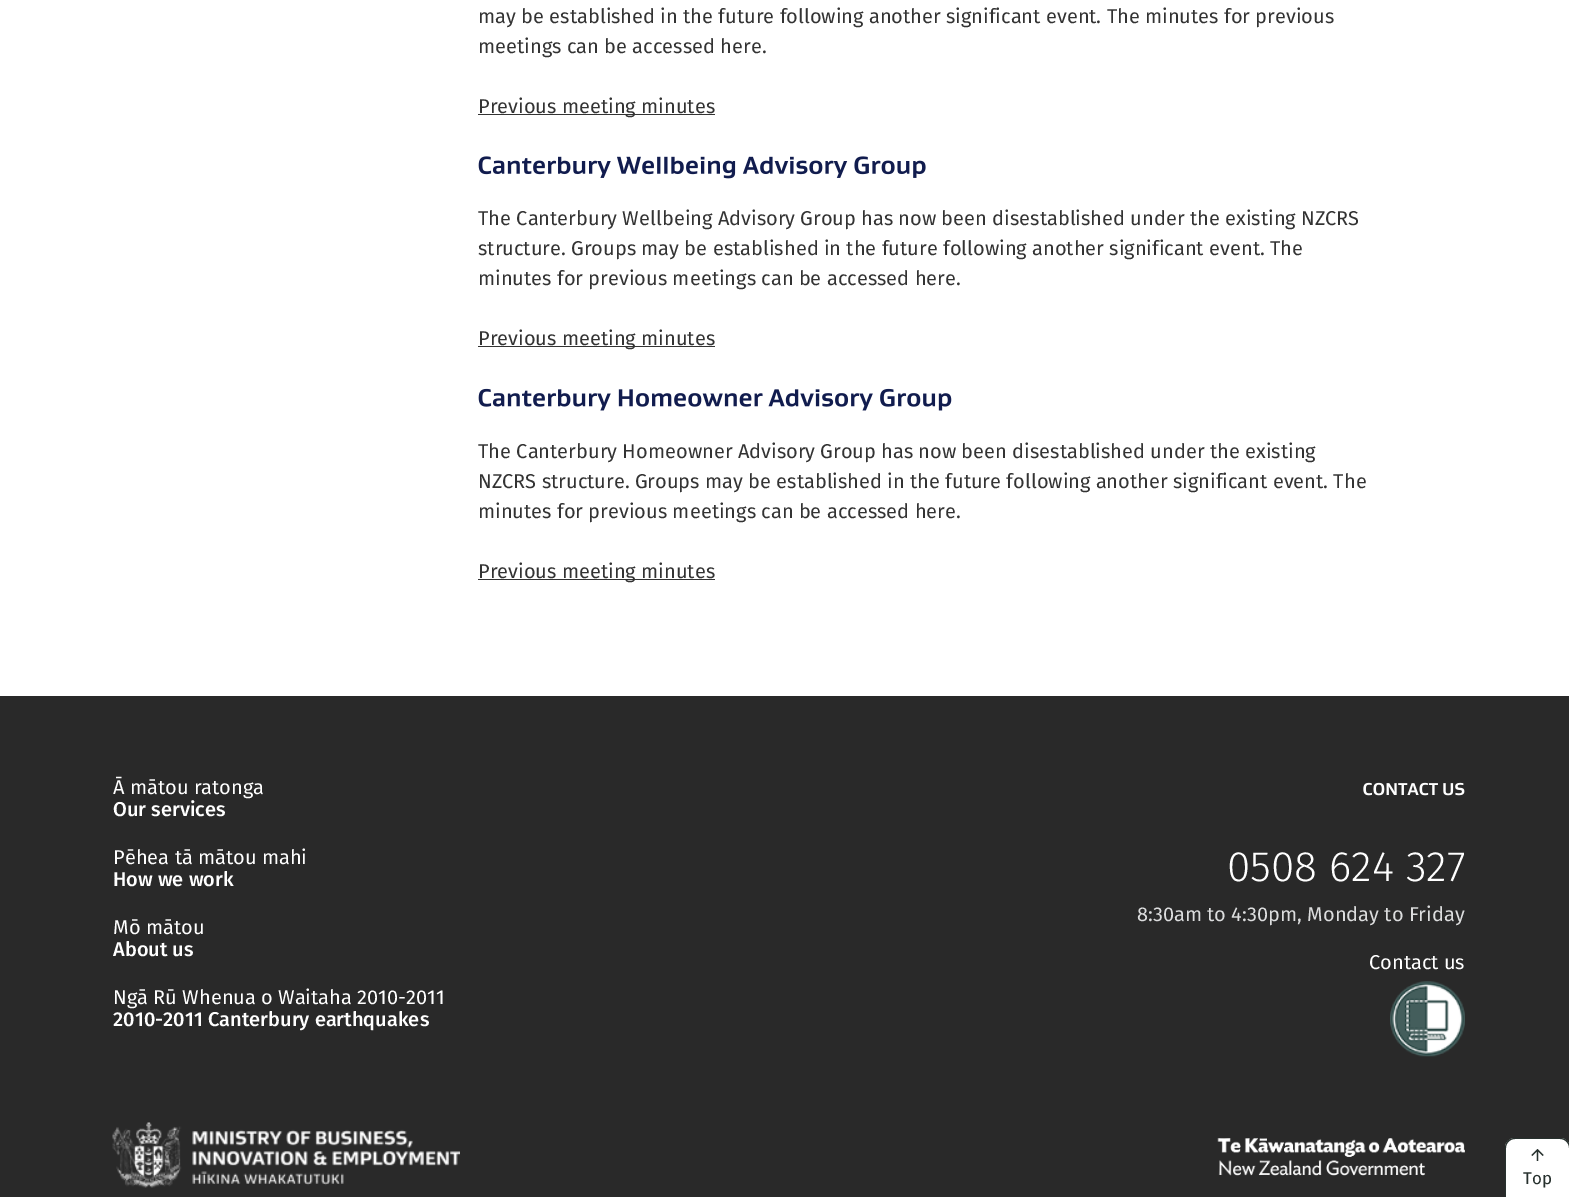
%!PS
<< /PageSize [1569 1197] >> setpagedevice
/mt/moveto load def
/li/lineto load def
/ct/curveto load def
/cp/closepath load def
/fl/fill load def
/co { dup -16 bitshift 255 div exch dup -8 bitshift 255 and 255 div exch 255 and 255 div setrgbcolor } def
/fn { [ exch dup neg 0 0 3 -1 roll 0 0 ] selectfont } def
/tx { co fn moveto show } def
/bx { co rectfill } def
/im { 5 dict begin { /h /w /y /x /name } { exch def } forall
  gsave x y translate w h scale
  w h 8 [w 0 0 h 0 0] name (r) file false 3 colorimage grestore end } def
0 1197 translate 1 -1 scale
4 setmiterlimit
0 0 1569 1197 16#FFFFFF bx
478 114 237 1 16#333333 bx
(media/1.raw) 478 156 448 23 im
478 346 237 1 16#333333 bx
(media/2.raw) 478 388 474 23 im
478 579 237 1 16#333333 bx
0 696 1569 501 16#292929 bx
(media/3.raw) 1363 782 102 14 im
(media/4.raw) 1390 981 75 76 im
(media/5.raw) 112 1122 348 66 im
(media/6.raw) 1217 1138 248 38 im
16#FFFFFF co
1515 1138 mt 1560 1138 li 1565.5 1138 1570 1142.5 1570 1148 ct 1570 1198 li 1505 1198 li 1505 1148 li 1505 1142.5 1509.5 1138 1515 1138 ct cp fl
(media/7.raw) 1531 1149 13 12 im
16#27312E co
1515 1138 mt 1560 1138 li 1566 1138 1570 1142 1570 1148 ct 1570 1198 li 1505 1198 li 1505 1148 li 1505 1142 1509 1138 1515 1138 ct cp 1515 1139 mt 1560 1139 li 1565 1139 1569 1143 1569 1148 ct 1569 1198 li 1506 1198 li 1506 1148 li 1506 1143 1510 1139 1515 1139 ct cp eofill
(may be established in the future following another significant event. The minutes for previous) 478 23 /FiraSans-Regular 20 16#333333 tx
(meetings can be accessed here.) 478 53 /FiraSans-Regular 20 16#333333 tx
(Previous meeting minutes) 478 113 /FiraSans-Regular 20 16#333333 tx
(The Canterbury Wellbeing Advisory Group has now been disestablished under the existing NZCRS) 478 225 /FiraSans-Regular 20 16#333333 tx
(structure. Groups may be established in the future following another significant event. The) 478 255 /FiraSans-Regular 20 16#333333 tx
(minutes for previous meetings can be accessed here.) 478 285 /FiraSans-Regular 20 16#333333 tx
(Previous meeting minutes) 478 345 /FiraSans-Regular 20 16#333333 tx
(The Canterbury Homeowner Advisory Group has now been disestablished under the existing) 478 458 /FiraSans-Regular 20 16#333333 tx
(NZCRS structure. Groups may be established in the future following another significant event. The) 478 488 /FiraSans-Regular 20 16#333333 tx
(minutes for previous meetings can be accessed here.) 478 518 /FiraSans-Regular 20 16#333333 tx
(Previous meeting minutes) 478 578 /FiraSans-Regular 20 16#333333 tx
(Ā mātou ratonga) 113 794 /FiraSans-Regular 20 16#FFFFFF tx
(Our services) 113 816 /FiraSans-Medium 20 16#FFFFFF tx
(Pēhea tā mātou mahi) 113 864 /FiraSans-Regular 20 16#FFFFFF tx
(How we work) 113 886 /FiraSans-Medium 20 16#FFFFFF tx
(Mō mātou) 113 934 /FiraSans-Regular 20 16#FFFFFF tx
(About us) 113 956 /FiraSans-Medium 20 16#FFFFFF tx
(Ngā Rū Whenua o Waitaha 2010-2011) 113 1004 /FiraSans-Regular 20 16#FFFFFF tx
(2010-2011 Canterbury earthquakes) 113 1026 /FiraSans-Medium 20 16#FFFFFF tx
(0508 624 327) 1227 881 /FiraSans-Light 42.5 16#FFFFFF tx
(8:30am to 4:30pm, Monday to Friday) 1137 921 /FiraSans-Regular 20 16#DCDDDE tx
(Contact us) 1369 969 /FiraSans-Regular 20 16#FFFFFF tx
(Top) 1523 1184 /FiraSans-Regular 17 16#27312E tx
showpage
